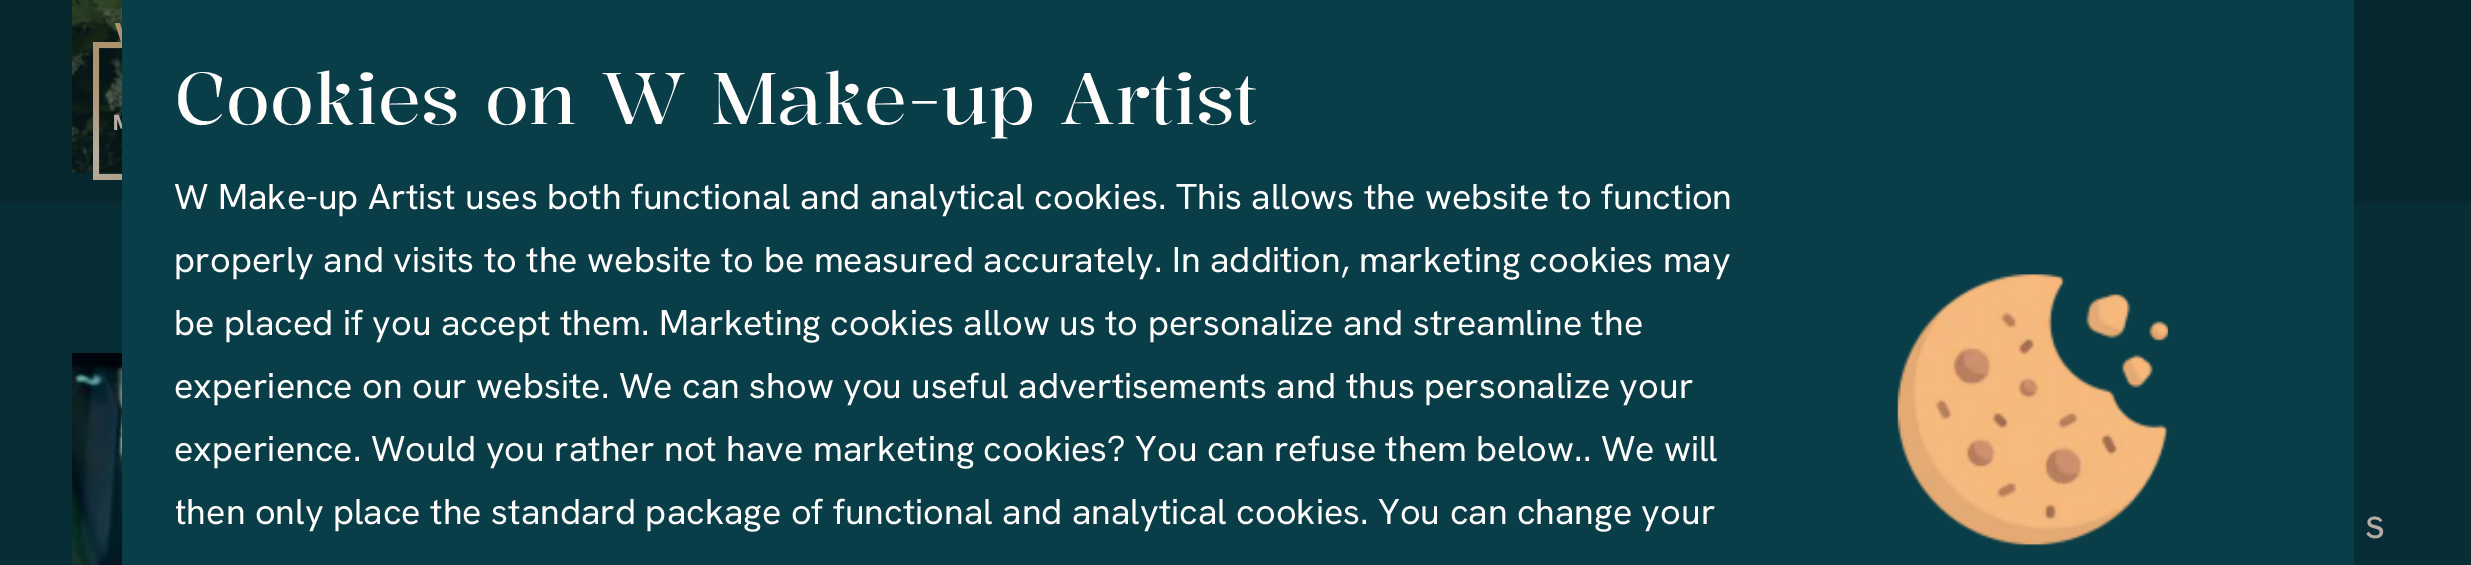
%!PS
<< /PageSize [2471 565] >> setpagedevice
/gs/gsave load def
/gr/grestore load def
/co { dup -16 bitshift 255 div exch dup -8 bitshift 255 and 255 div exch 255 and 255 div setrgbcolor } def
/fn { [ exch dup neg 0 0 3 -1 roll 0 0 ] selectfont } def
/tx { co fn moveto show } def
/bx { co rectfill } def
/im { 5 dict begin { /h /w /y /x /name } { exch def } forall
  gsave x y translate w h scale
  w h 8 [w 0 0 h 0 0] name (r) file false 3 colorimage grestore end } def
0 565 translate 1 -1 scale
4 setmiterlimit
0 0 2471 565 16#072E36 bx
0 0 2471 203 16#06272E bx
(media/3.raw) 72 0 50 173 im
(media/1.raw) 93 23 29 157 im
122 0 2232 565 16#093D48 bx
(media/2.raw) 1897 274 272 272 im
(media/4.raw) 72 352 50 213 im
(Cookies on W Make-up Artist) 174 124 /Kalnia-Regular 72 16#FEFDFB tx
(W Make-up Artist uses both functional and analytical cookies. This allows the website to function) 174 209 /HankenGrotesk-Regular 36 16#FEFDFB tx
(properly and visits to the website to be measured accurately. In addition, marketing cookies may) 174 272 /HankenGrotesk-Regular 36 16#FEFDFB tx
(be placed if you accept them. Marketing cookies allow us to personalize and streamline the) 174 335 /HankenGrotesk-Regular 36 16#FEFDFB tx
(experience on our website. We can show you useful advertisements and thus personalize your) 174 398 /HankenGrotesk-Regular 36 16#FEFDFB tx
(experience. Would you rather not have marketing cookies? You can refuse them below.. We will) 174 461 /HankenGrotesk-Regular 36 16#FEFDFB tx
gs
176 54 1593 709 rectclip
(then only place the standard package of functional and analytical cookies. You can change your) 174 524 /HankenGrotesk-Regular 36 16#FEFDFB tx
gr
(s) 2365 538 /HankenGrotesk-Regular 43 16#B6ADA2 tx
showpage
